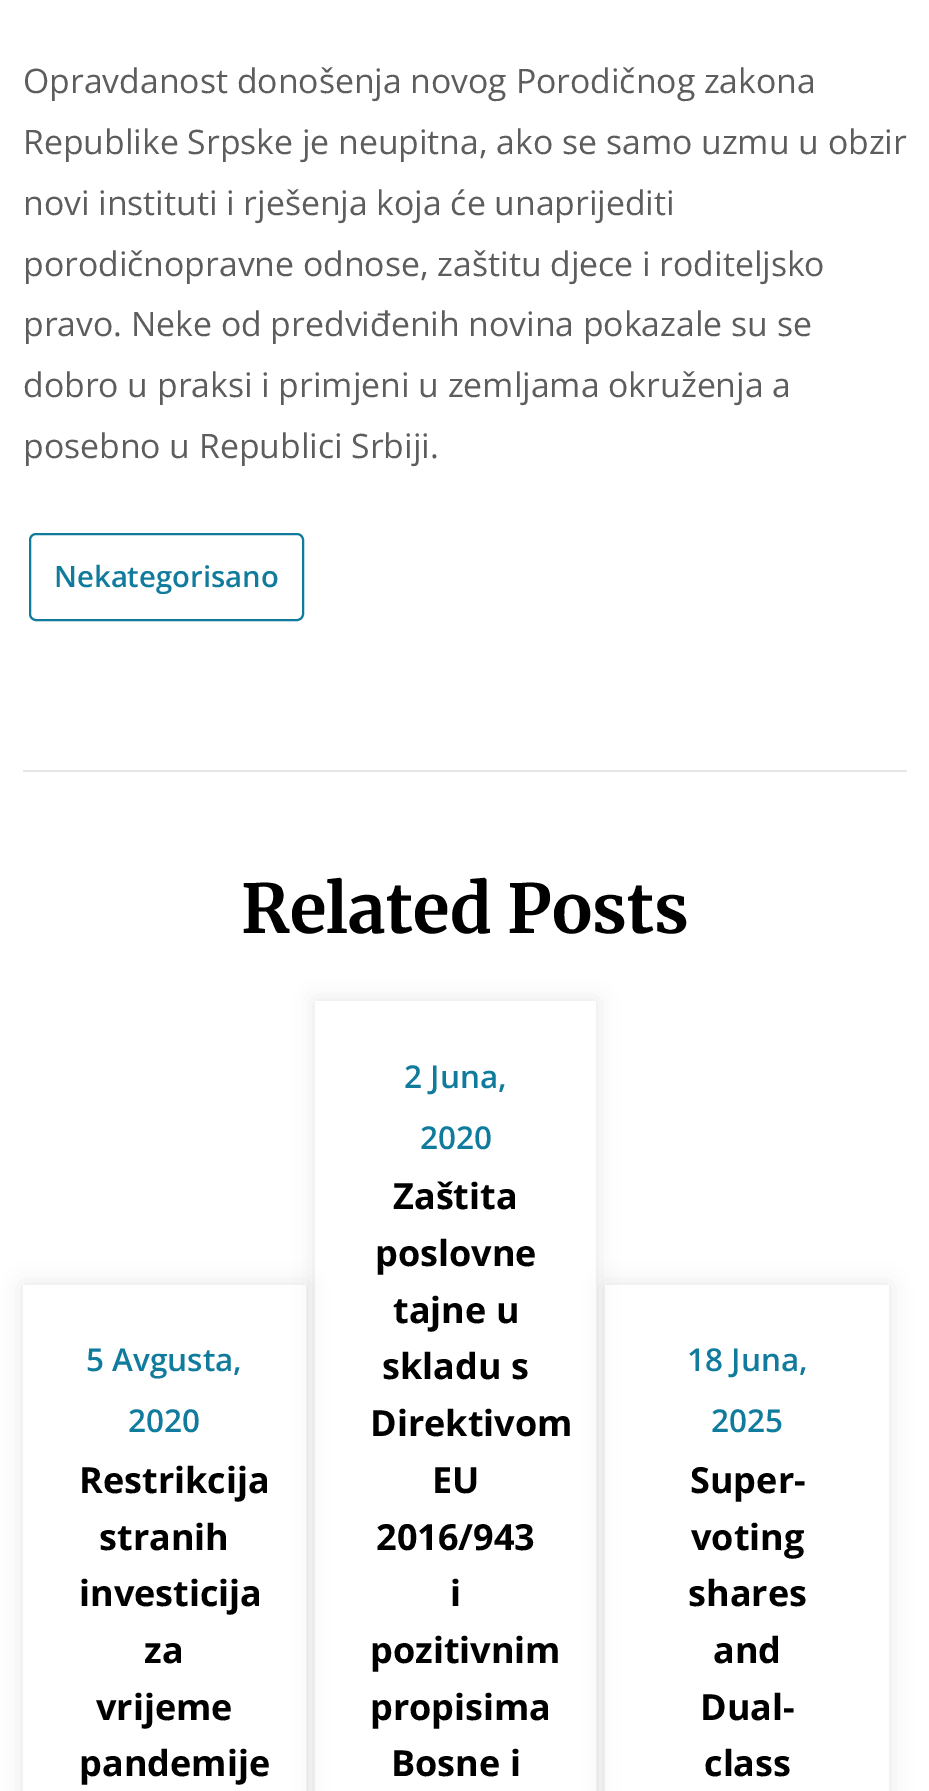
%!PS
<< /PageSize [929 1791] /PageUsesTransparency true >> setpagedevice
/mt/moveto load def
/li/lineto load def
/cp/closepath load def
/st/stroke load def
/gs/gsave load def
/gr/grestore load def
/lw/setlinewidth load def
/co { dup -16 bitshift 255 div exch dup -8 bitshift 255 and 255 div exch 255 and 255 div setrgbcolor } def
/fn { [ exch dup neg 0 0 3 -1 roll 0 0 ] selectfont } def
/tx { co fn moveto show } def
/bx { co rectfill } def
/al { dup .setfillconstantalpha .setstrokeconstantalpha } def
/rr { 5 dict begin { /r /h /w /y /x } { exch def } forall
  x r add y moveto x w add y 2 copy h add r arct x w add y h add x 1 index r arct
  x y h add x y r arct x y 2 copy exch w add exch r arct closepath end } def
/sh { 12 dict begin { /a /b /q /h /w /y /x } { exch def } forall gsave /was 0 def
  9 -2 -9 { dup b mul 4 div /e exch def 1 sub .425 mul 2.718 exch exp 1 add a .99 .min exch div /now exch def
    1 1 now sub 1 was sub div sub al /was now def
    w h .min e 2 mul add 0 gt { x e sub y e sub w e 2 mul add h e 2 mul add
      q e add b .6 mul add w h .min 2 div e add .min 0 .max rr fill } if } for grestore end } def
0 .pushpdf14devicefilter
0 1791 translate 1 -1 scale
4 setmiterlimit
0 0 929 1791 16#FFFFFF bx
16#107B9C co
2 lw
30 534 273 86 6 rr st
23 770 884 2 16#E6E6E6 bx
gs
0 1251 mt 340 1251 li 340 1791 li 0 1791 li cp 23 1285 mt 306 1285 li 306 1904 li 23 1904 li cp eoclip newpath
16#000000 co
23 1285 283 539 0 11 .1 sh
gr
gs
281 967 mt 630 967 li 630 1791 li 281 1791 li cp 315 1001 mt 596 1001 li 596 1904 li 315 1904 li cp eoclip newpath
16#000000 co
315 1001 281 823 0 11 .1 sh
gr
gs
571 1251 mt 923 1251 li 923 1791 li 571 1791 li cp 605 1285 mt 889 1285 li 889 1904 li 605 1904 li cp eoclip newpath
16#000000 co
605 1285 284 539 0 11 .1 sh
gr
(Opravdanost donošenja novog Porodičnog zakona) 23 93 /OpenSans-Regular 33.75 16#5D5D5D tx
(Republike Srpske je neupitna, ako se samo uzmu u obzir) 23 154 /OpenSans-Regular 33.75 16#5D5D5D tx
(novi instituti i rješenja koja će unaprijediti) 23 215 /OpenSans-Regular 33.75 16#5D5D5D tx
(porodičnopravne odnose, zaštitu djece i roditeljsko) 23 276 /OpenSans-Regular 33.75 16#5D5D5D tx
(pravo. Neke od predviđenih novina pokazale su se) 23 336 /OpenSans-Regular 33.75 16#5D5D5D tx
(dobro u praksi i primjeni u zemljama okruženja a) 23 397 /OpenSans-Regular 33.75 16#5D5D5D tx
(posebno u Republici Srbiji.) 23 458 /OpenSans-Regular 33.75 16#5D5D5D tx
(Nekategorisano) 54 587 /OpenSans-SemiBold 29.25 16#107B9C tx
(Related Posts) 241 933 /Merriweather-Bold 67.5 16#000000 tx
(5 Avgusta,) 86 1371 /OpenSans-SemiBold 31.5 16#107B9C tx
(2020) 128 1432 /OpenSans-SemiBold 31.5 16#107B9C tx
(Restrikcija) 79 1493 /OpenSans-Bold 36 16#000000 tx
(stranih) 99 1550 /OpenSans-Bold 36 16#000000 tx
(investicija) 79 1606 /OpenSans-Bold 36 16#000000 tx
(za) 144 1663 /OpenSans-Bold 36 16#000000 tx
(vrijeme) 96 1720 /OpenSans-Bold 36 16#000000 tx
(pandemije) 79 1776 /OpenSans-Bold 36 16#000000 tx
(2 Juna,) 404 1088 /OpenSans-SemiBold 31.5 16#107B9C tx
(2020) 420 1149 /OpenSans-SemiBold 31.5 16#107B9C tx
(Zaštita) 393 1209 /OpenSans-Bold 36 16#000000 tx
(poslovne) 375 1266 /OpenSans-Bold 36 16#000000 tx
(tajne u) 393 1323 /OpenSans-Bold 36 16#000000 tx
(skladu s) 382 1379 /OpenSans-Bold 36 16#000000 tx
(Direktivom) 370 1436 /OpenSans-Bold 36 16#000000 tx
(EU) 432 1493 /OpenSans-Bold 36 16#000000 tx
(2016/943) 376 1550 /OpenSans-Bold 36 16#000000 tx
(i) 450 1606 /OpenSans-Bold 36 16#000000 tx
(pozitivnim) 370 1663 /OpenSans-Bold 36 16#000000 tx
(propisima) 370 1720 /OpenSans-Bold 36 16#000000 tx
(Bosne i) 391 1776 /OpenSans-Bold 36 16#000000 tx
(18 Juna,) 687 1371 /OpenSans-SemiBold 31.5 16#107B9C tx
(2025) 711 1432 /OpenSans-SemiBold 31.5 16#107B9C tx
(Super-) 690 1493 /OpenSans-Bold 36 16#000000 tx
(voting) 691 1550 /OpenSans-Bold 36 16#000000 tx
(shares) 688 1606 /OpenSans-Bold 36 16#000000 tx
(and) 713 1663 /OpenSans-Bold 36 16#000000 tx
(Dual-) 700 1720 /OpenSans-Bold 36 16#000000 tx
(class) 704 1776 /OpenSans-Bold 36 16#000000 tx
.poppdf14devicefilter showpage
